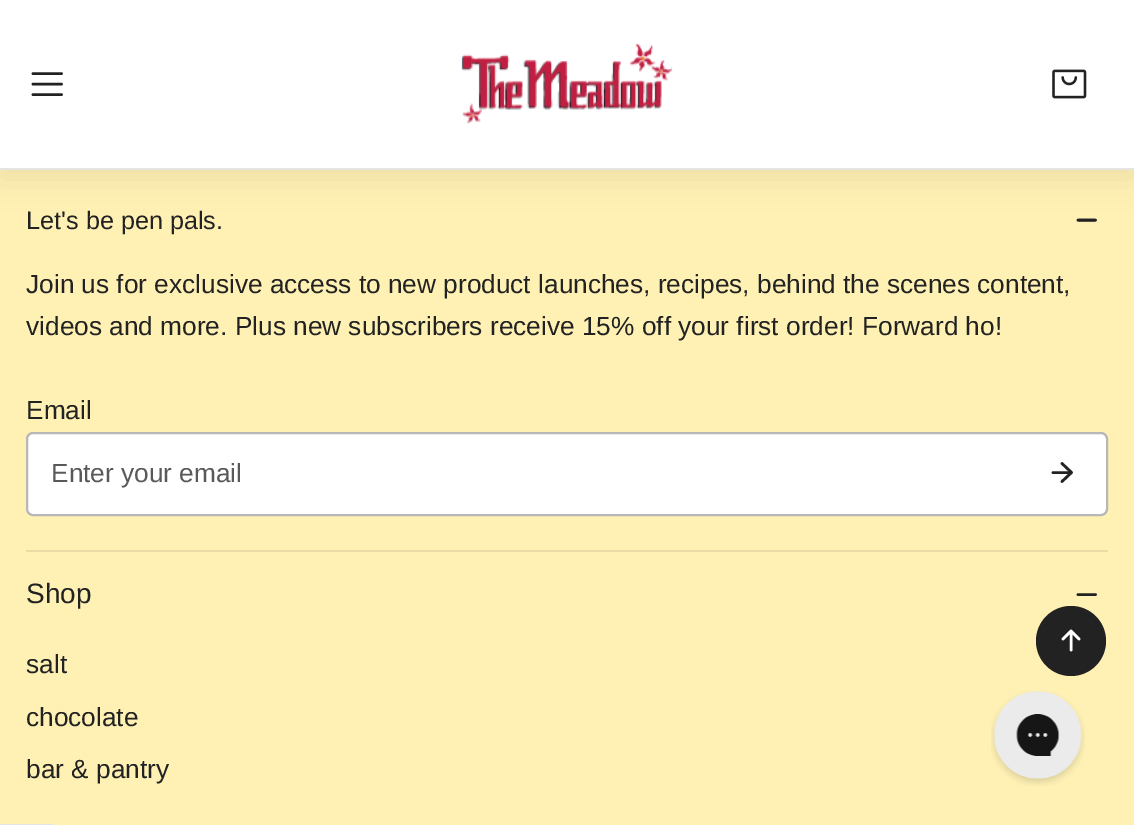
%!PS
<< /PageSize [1134 825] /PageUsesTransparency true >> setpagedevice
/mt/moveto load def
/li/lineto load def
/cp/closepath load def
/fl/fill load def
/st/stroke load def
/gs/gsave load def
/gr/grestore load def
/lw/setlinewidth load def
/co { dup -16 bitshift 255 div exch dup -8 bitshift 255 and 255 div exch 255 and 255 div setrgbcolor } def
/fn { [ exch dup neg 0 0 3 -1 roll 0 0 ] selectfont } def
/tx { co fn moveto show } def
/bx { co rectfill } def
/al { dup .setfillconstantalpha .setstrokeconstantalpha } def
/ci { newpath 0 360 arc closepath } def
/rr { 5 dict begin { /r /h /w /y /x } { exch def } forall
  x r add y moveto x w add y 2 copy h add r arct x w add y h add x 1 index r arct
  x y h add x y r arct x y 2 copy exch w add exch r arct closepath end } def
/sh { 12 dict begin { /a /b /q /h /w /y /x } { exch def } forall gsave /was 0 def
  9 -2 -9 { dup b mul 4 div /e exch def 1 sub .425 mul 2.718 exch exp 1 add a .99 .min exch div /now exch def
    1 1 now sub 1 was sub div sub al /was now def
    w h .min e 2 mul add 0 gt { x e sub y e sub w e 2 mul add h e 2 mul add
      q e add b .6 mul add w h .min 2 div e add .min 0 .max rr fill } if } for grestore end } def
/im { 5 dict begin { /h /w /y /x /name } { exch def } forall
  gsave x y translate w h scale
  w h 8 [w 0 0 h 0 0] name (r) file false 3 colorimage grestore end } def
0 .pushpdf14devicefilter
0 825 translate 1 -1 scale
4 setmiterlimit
0 0 1134 825 16#FFF1B4 bx
gs
1076 221.5 mt 1076 218 li 1097 218 li 1097 221.5 li cp clip newpath
16#222222 co
2.6 lw
1 setlinecap
1 setlinejoin
1079 220 mt 1095.5 220 li st
gr
gs
1097 218 mt 1097 221.5 li 1076 221.5 li 1076 218 li cp clip newpath
16#222222 co
2.6 lw
1 setlinecap
1 setlinejoin
1094.5 220 mt 1078 220 li st
gr
16#000000 co
0 7 1134 170 0 16 .07 sh
0 0 1134 168 16#FFFFFF bx
0 168 1134 2 16#E6E4E2 bx
16#222222 co
2.6 lw
1 setlinecap
1 setlinejoin
33 84 mt 61.5 84 li 33 73.5 mt 61.5 73.5 li 33 94.5 mt 61.5 94.5 li st
(media/1.raw) 461 44 212 80 im
(media/2.raw) 1052 69 35 30 im
16#FFFFFF co
27 433 1080 82 6 rr gs fl gr
16#B7B7B7 co
2 lw
0 setlinecap
0 setlinejoin
st
16#222222 co
2.6 lw
1 setlinecap
1 setlinejoin
1053 472.5 mt 1071.5 472.5 li 1062 463.5 mt 1071.5 472.5 li 1062 481.5 li st
26 550 1082 2 16#E9DCA5 bx
16#222222 co
1079 594.5 mt 1095.5 594.5 li 1094.5 594.5 mt 1078 594.5 li st
1071 641 35 ci fl
16#FFFFFF co
1071 650 mt 1071 631 li 1063 639 mt 1071 631 li 1079 639 li st
0 824 53 1 16#E6E4E2 bx
(media/3.raw) 991 691 94 95 im
(Let's be pen pals.) 26 229 /LiberationSans-Regular 25.25 16#222222 tx
(Join us for exclusive access to new product launches, recipes, behind the scenes content,) 26 293 /LiberationSans-Regular 26.25 16#222222 tx
(videos and more. Plus new subscribers receive 15% off your first order! Forward ho!) 26 335 /LiberationSans-Regular 26.25 16#222222 tx
(Email) 26 419 /LiberationSans-Regular 26.25 16#222222 tx
(Enter your email) 51 482 /LiberationSans-Regular 26.25 16#595959 tx
(Shop) 26 603 /LiberationSans-Regular 28 16#222222 tx
(salt) 26 673 /LiberationSans-Regular 26.25 16#222222 tx
(chocolate) 26 726 /LiberationSans-Regular 26.25 16#222222 tx
(bar & pantry) 26 778 /LiberationSans-Regular 26.25 16#222222 tx
.poppdf14devicefilter showpage
